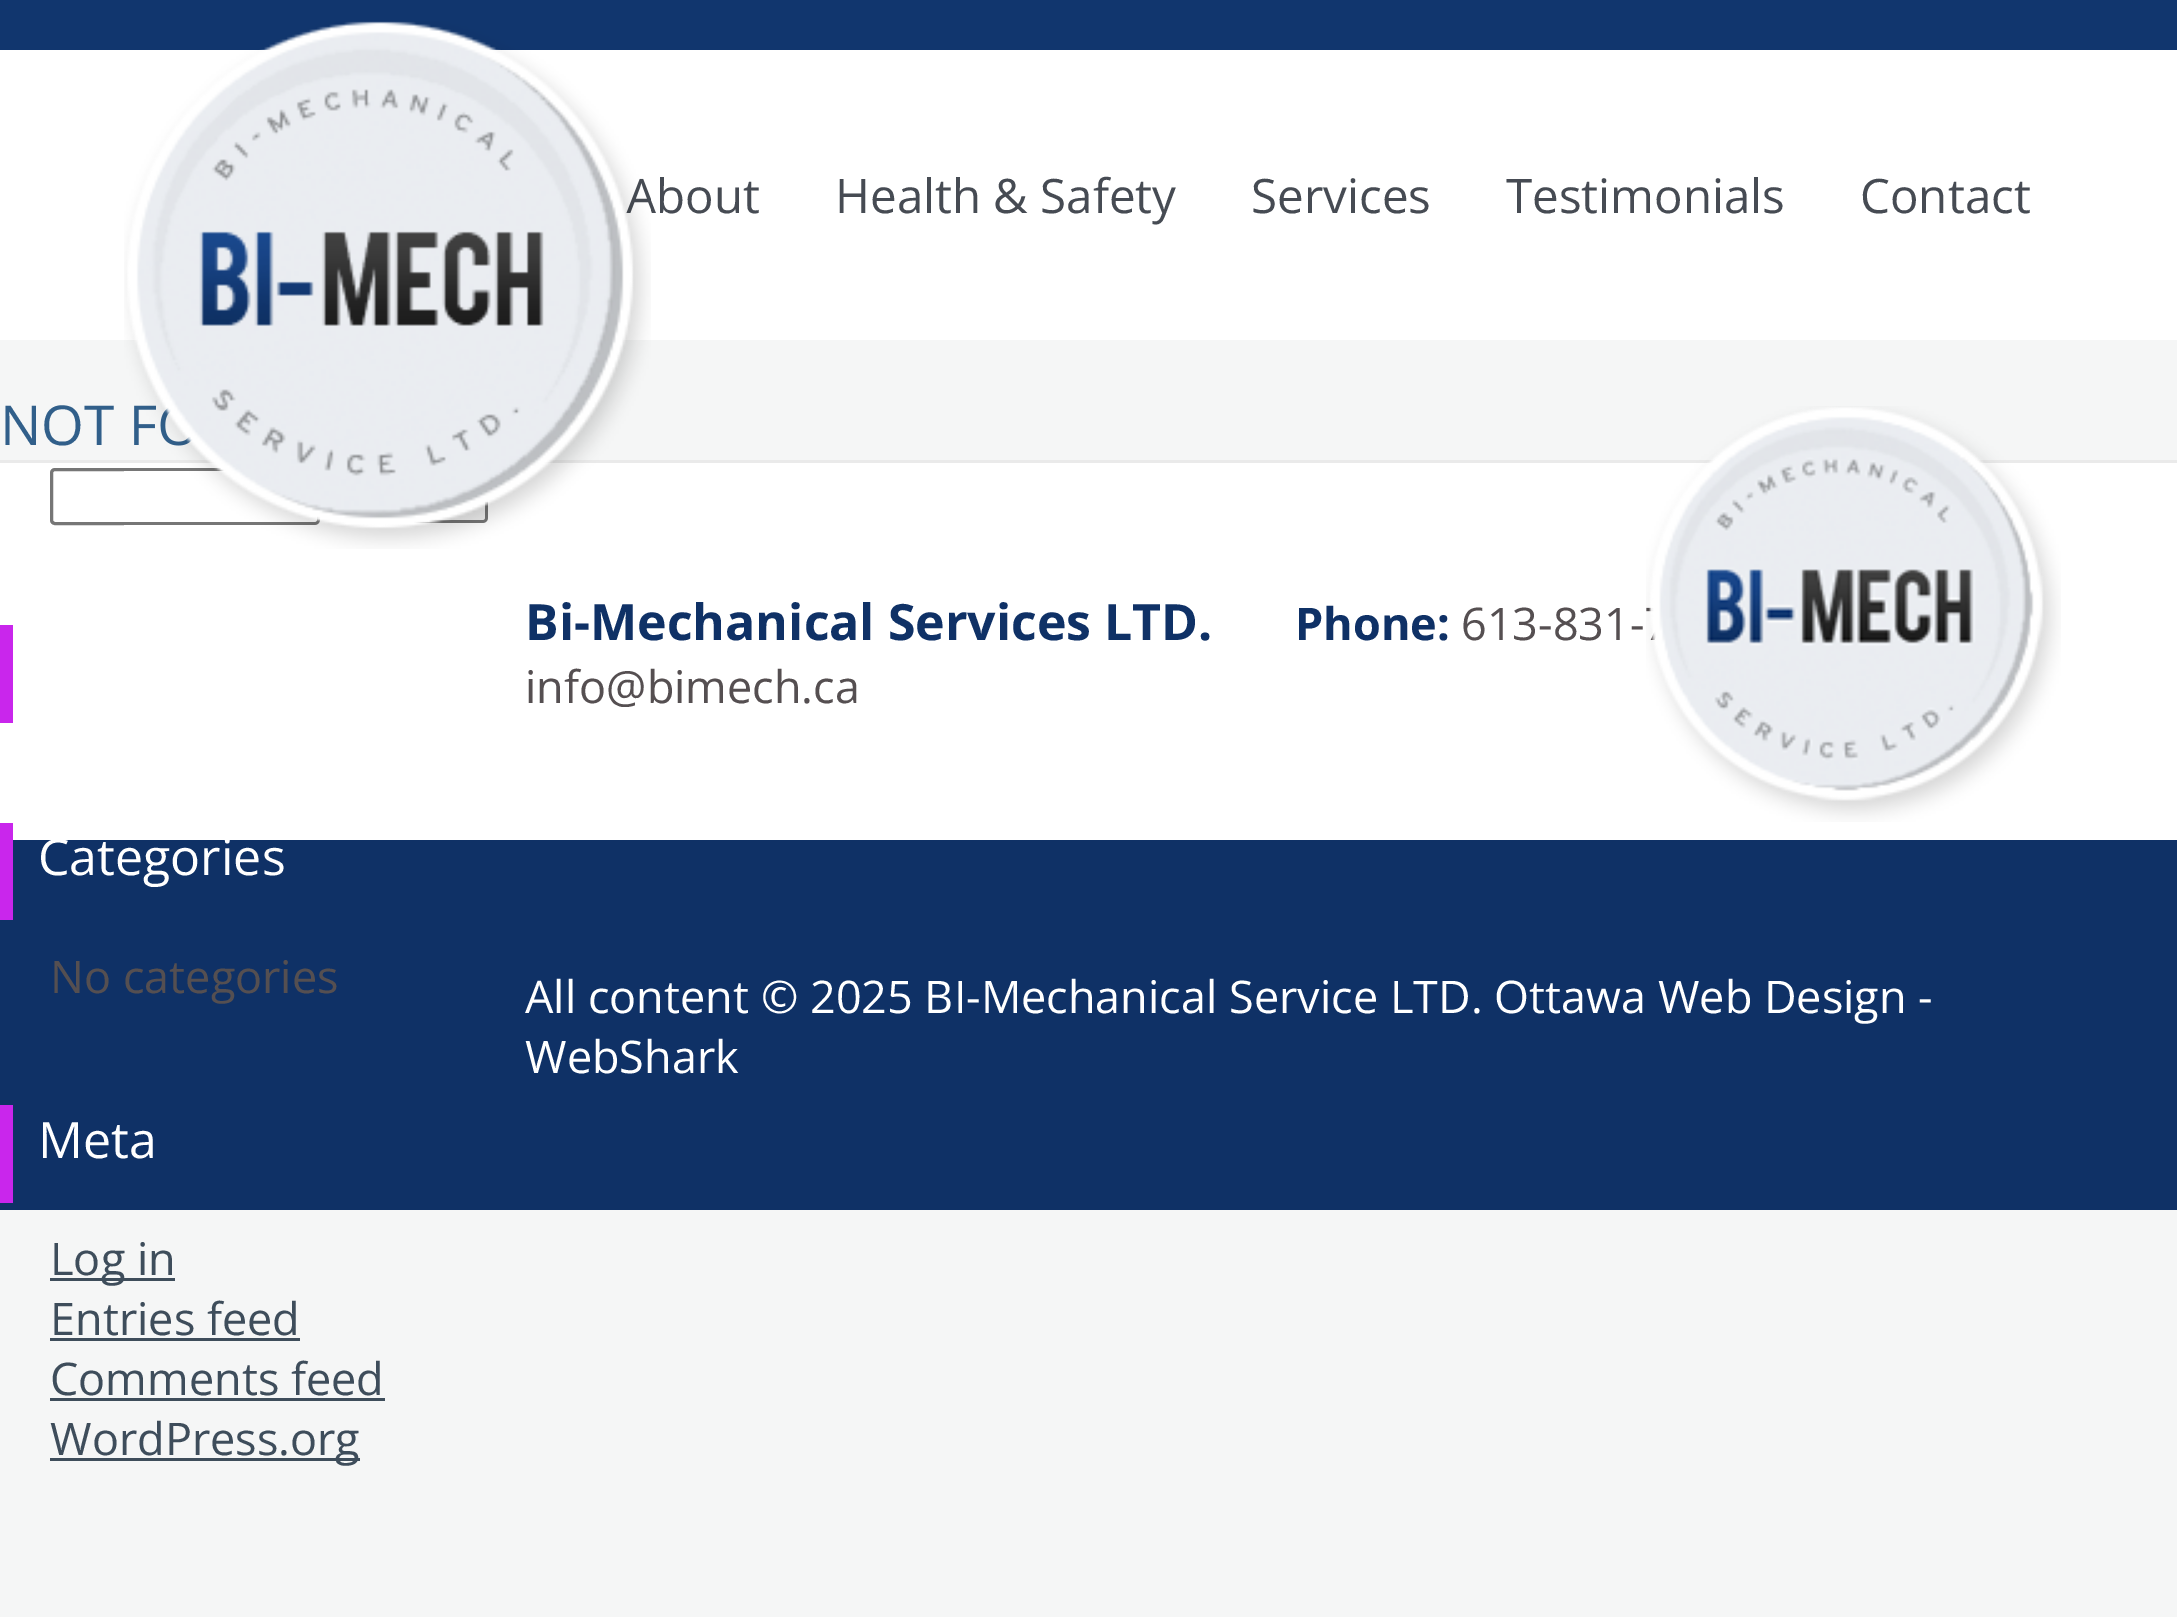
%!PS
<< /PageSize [2177 1617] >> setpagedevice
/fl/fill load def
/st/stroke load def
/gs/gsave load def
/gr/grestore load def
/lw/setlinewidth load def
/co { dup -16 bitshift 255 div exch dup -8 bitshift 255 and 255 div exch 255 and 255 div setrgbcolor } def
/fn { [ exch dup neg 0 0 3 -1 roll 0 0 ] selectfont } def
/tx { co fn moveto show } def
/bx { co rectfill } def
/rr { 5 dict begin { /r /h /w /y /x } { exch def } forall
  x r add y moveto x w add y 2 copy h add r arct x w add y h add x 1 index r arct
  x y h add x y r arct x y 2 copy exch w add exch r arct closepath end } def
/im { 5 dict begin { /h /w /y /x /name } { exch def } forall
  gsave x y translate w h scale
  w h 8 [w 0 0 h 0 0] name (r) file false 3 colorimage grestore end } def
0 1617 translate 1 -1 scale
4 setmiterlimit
0 0 2177 1617 16#F5F6F6 bx
0 50 2177 290 16#FFFFFF bx
0 0 2177 50 16#11366E bx
0 463 2177 377 16#FFFFFF bx
0 460 2177 3 16#EAEAEA bx
(media/2.raw) 1646 406 415 416 im
16#767676 co
3 lw
51.5 469.5 267 54 3.5 rr st
16#EFEFEF co
346.5 471.5 140 50 3.5 rr gs fl gr
16#767676 co
st
0 625 13 98 16#C926EC bx
0 840 2177 370 16#0F3166 bx
0 823 13 97 16#C926EC bx
0 1105 13 98 16#C926EC bx
50 1278 125 3 16#3E4D5B bx
50 1338 250 3 16#3E4D5B bx
50 1398 335 3 16#3E4D5B bx
50 1458 310 3 16#3E4D5B bx
(About) 626 213 /OpenSans-Regular 47.5 16#464B53 tx
(Health & Safety) 835 213 /OpenSans-Regular 47.5 16#464B53 tx
(Services) 1251 213 /OpenSans-Regular 47.5 16#464B53 tx
(Testimonials) 1506 213 /OpenSans-Regular 47.5 16#464B53 tx
(Contact) 1860 213 /OpenSans-Regular 47.5 16#464B53 tx
(NOT FO) 0 445 /OpenSans-Regular 55 16#315F8A tx
(media/1.raw) 124 21 527 528 im
(Bi-Mechanical Services LTD.) 525 640 /OpenSans-Bold 50 16#0F3166 tx
(Phone:) 1295 640 /OpenSans-Bold 45 16#0F3166 tx
(613-831-) 1461 640 /OpenSans-Regular 45 16#554F51 tx
(info@bimech.ca) 525 703 /OpenSans-Regular 45 16#554F51 tx
(Categories) 38 875 /OpenSans-Regular 50 16#FFFFFF tx
(No categories) 50 993 /OpenSans-Regular 45 16#554F51 tx
(Meta) 38 1158 /OpenSans-Regular 50 16#FFFFFF tx
(Log in) 50 1275 /OpenSans-Regular 45 16#3E4D5B tx
(Entries feed) 50 1335 /OpenSans-Regular 45 16#3E4D5B tx
(Comments feed) 50 1395 /OpenSans-Regular 45 16#3E4D5B tx
(WordPress.org) 50 1455 /OpenSans-Regular 45 16#3E4D5B tx
(All content © 2025 BI-Mechanical Service LTD. Ottawa Web Design -) 525 1013 /OpenSans-Regular 45 16#FFFFFF tx
(WebShark) 525 1073 /OpenSans-Regular 45 16#FFFFFF tx
showpage
